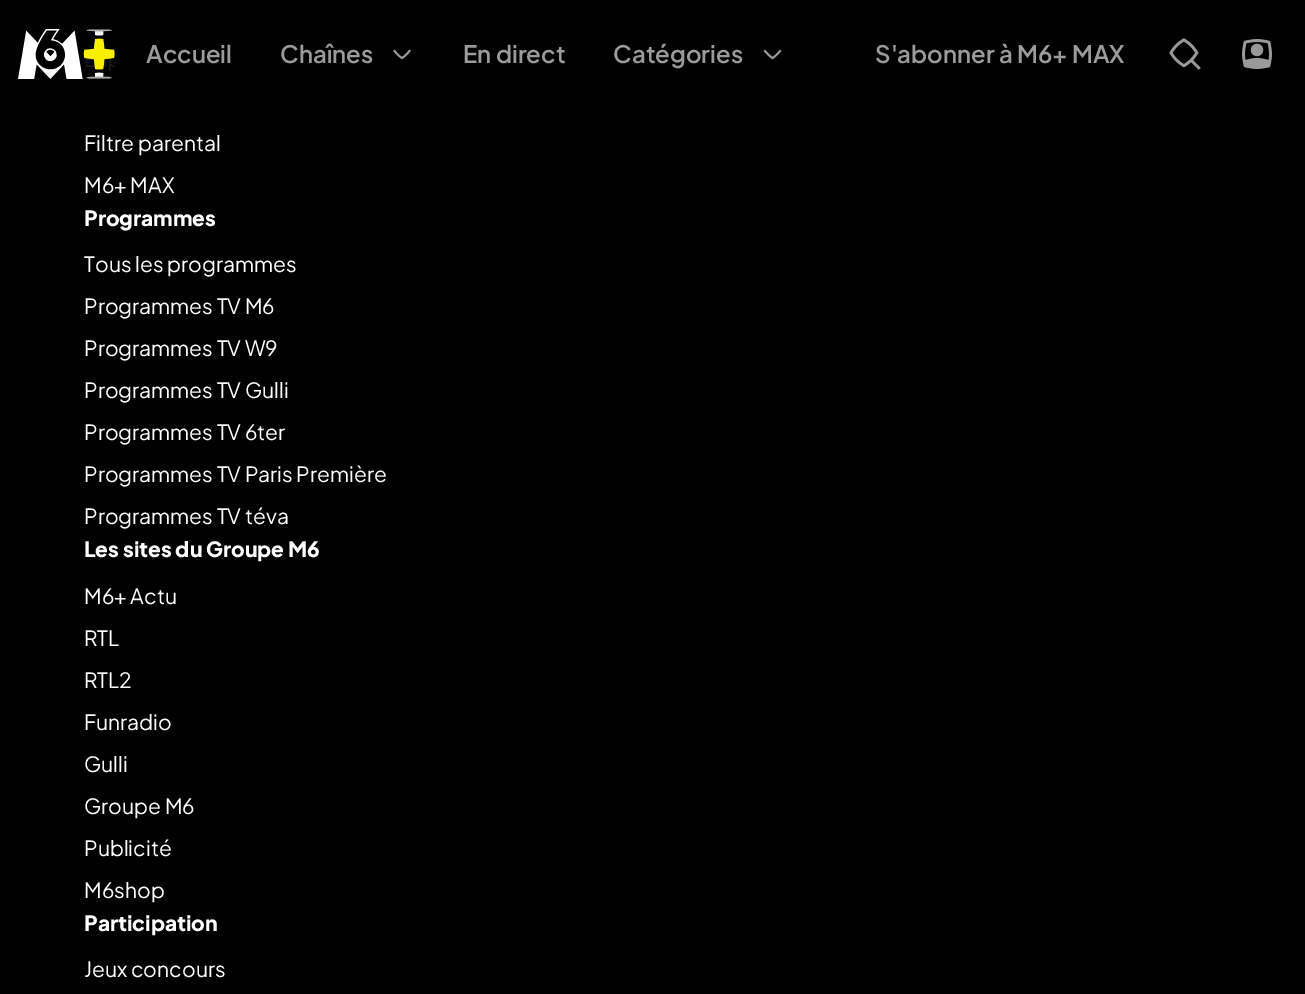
%!PS
<< /PageSize [1305 994] >> setpagedevice
/co { dup -16 bitshift 255 div exch dup -8 bitshift 255 and 255 div exch 255 and 255 div setrgbcolor } def
/fn { [ exch dup neg 0 0 3 -1 roll 0 0 ] selectfont } def
/tx { co fn moveto show } def
/bx { co rectfill } def
/im { 5 dict begin { /h /w /y /x /name } { exch def } forall
  gsave x y translate w h scale
  w h 8 [w 0 0 h 0 0] name (r) file false 3 colorimage grestore end } def
0 994 translate 1 -1 scale
4 setmiterlimit
0 0 1305 994 16#000000 bx
(media/1.raw) 18 29 97 50 im
(media/2.raw) 393 49 18 11 im
(media/3.raw) 763 49 19 11 im
(media/4.raw) 1169 38 32 32 im
(media/5.raw) 1242 39 30 30 im
(Accueil) 146 63 /PlusJakartaSans-SemiBold 24 16#9B9B9B tx
(Chaînes) 280 63 /PlusJakartaSans-SemiBold 24 16#9B9B9B tx
(En direct) 463 63 /PlusJakartaSans-SemiBold 24 16#9B9B9B tx
(Catégories) 613 63 /PlusJakartaSans-SemiBold 24 16#9B9B9B tx
(S'abonner à M6+ MAX) 875 63 /PlusJakartaSans-SemiBold 24 16#9B9B9B tx
(Filtre parental) 84 151 /PlusJakartaSans-Regular 21 16#FFFFFF tx
(M6+ MAX) 84 193 /PlusJakartaSans-Regular 21 16#FFFFFF tx
(Programmes) 84 226 /PlusJakartaSans-ExtraBold 21 16#FFFFFF tx
(Tous les programmes) 84 272 /PlusJakartaSans-Regular 21 16#FFFFFF tx
(Programmes TV M6) 84 314 /PlusJakartaSans-Regular 21 16#FFFFFF tx
(Programmes TV W9) 84 356 /PlusJakartaSans-Regular 21 16#FFFFFF tx
(Programmes TV Gulli) 84 398 /PlusJakartaSans-Regular 21 16#FFFFFF tx
(Programmes TV 6ter) 84 440 /PlusJakartaSans-Regular 21 16#FFFFFF tx
(Programmes TV Paris Première) 84 482 /PlusJakartaSans-Regular 21 16#FFFFFF tx
(Programmes TV téva) 84 524 /PlusJakartaSans-Regular 21 16#FFFFFF tx
(Les sites du Groupe M6) 84 557 /PlusJakartaSans-ExtraBold 21 16#FFFFFF tx
(M6+ Actu) 84 604 /PlusJakartaSans-Regular 21 16#FFFFFF tx
(RTL) 84 646 /PlusJakartaSans-Regular 21 16#FFFFFF tx
(RTL2) 84 688 /PlusJakartaSans-Regular 21 16#FFFFFF tx
(Funradio) 84 730 /PlusJakartaSans-Regular 21 16#FFFFFF tx
(Gulli) 84 772 /PlusJakartaSans-Regular 21 16#FFFFFF tx
(Groupe M6) 84 814 /PlusJakartaSans-Regular 21 16#FFFFFF tx
(Publicité) 84 856 /PlusJakartaSans-Regular 21 16#FFFFFF tx
(M6shop) 84 898 /PlusJakartaSans-Regular 21 16#FFFFFF tx
(Participation) 84 931 /PlusJakartaSans-ExtraBold 21 16#FFFFFF tx
(Jeux concours) 84 977 /PlusJakartaSans-Regular 21 16#FFFFFF tx
showpage
